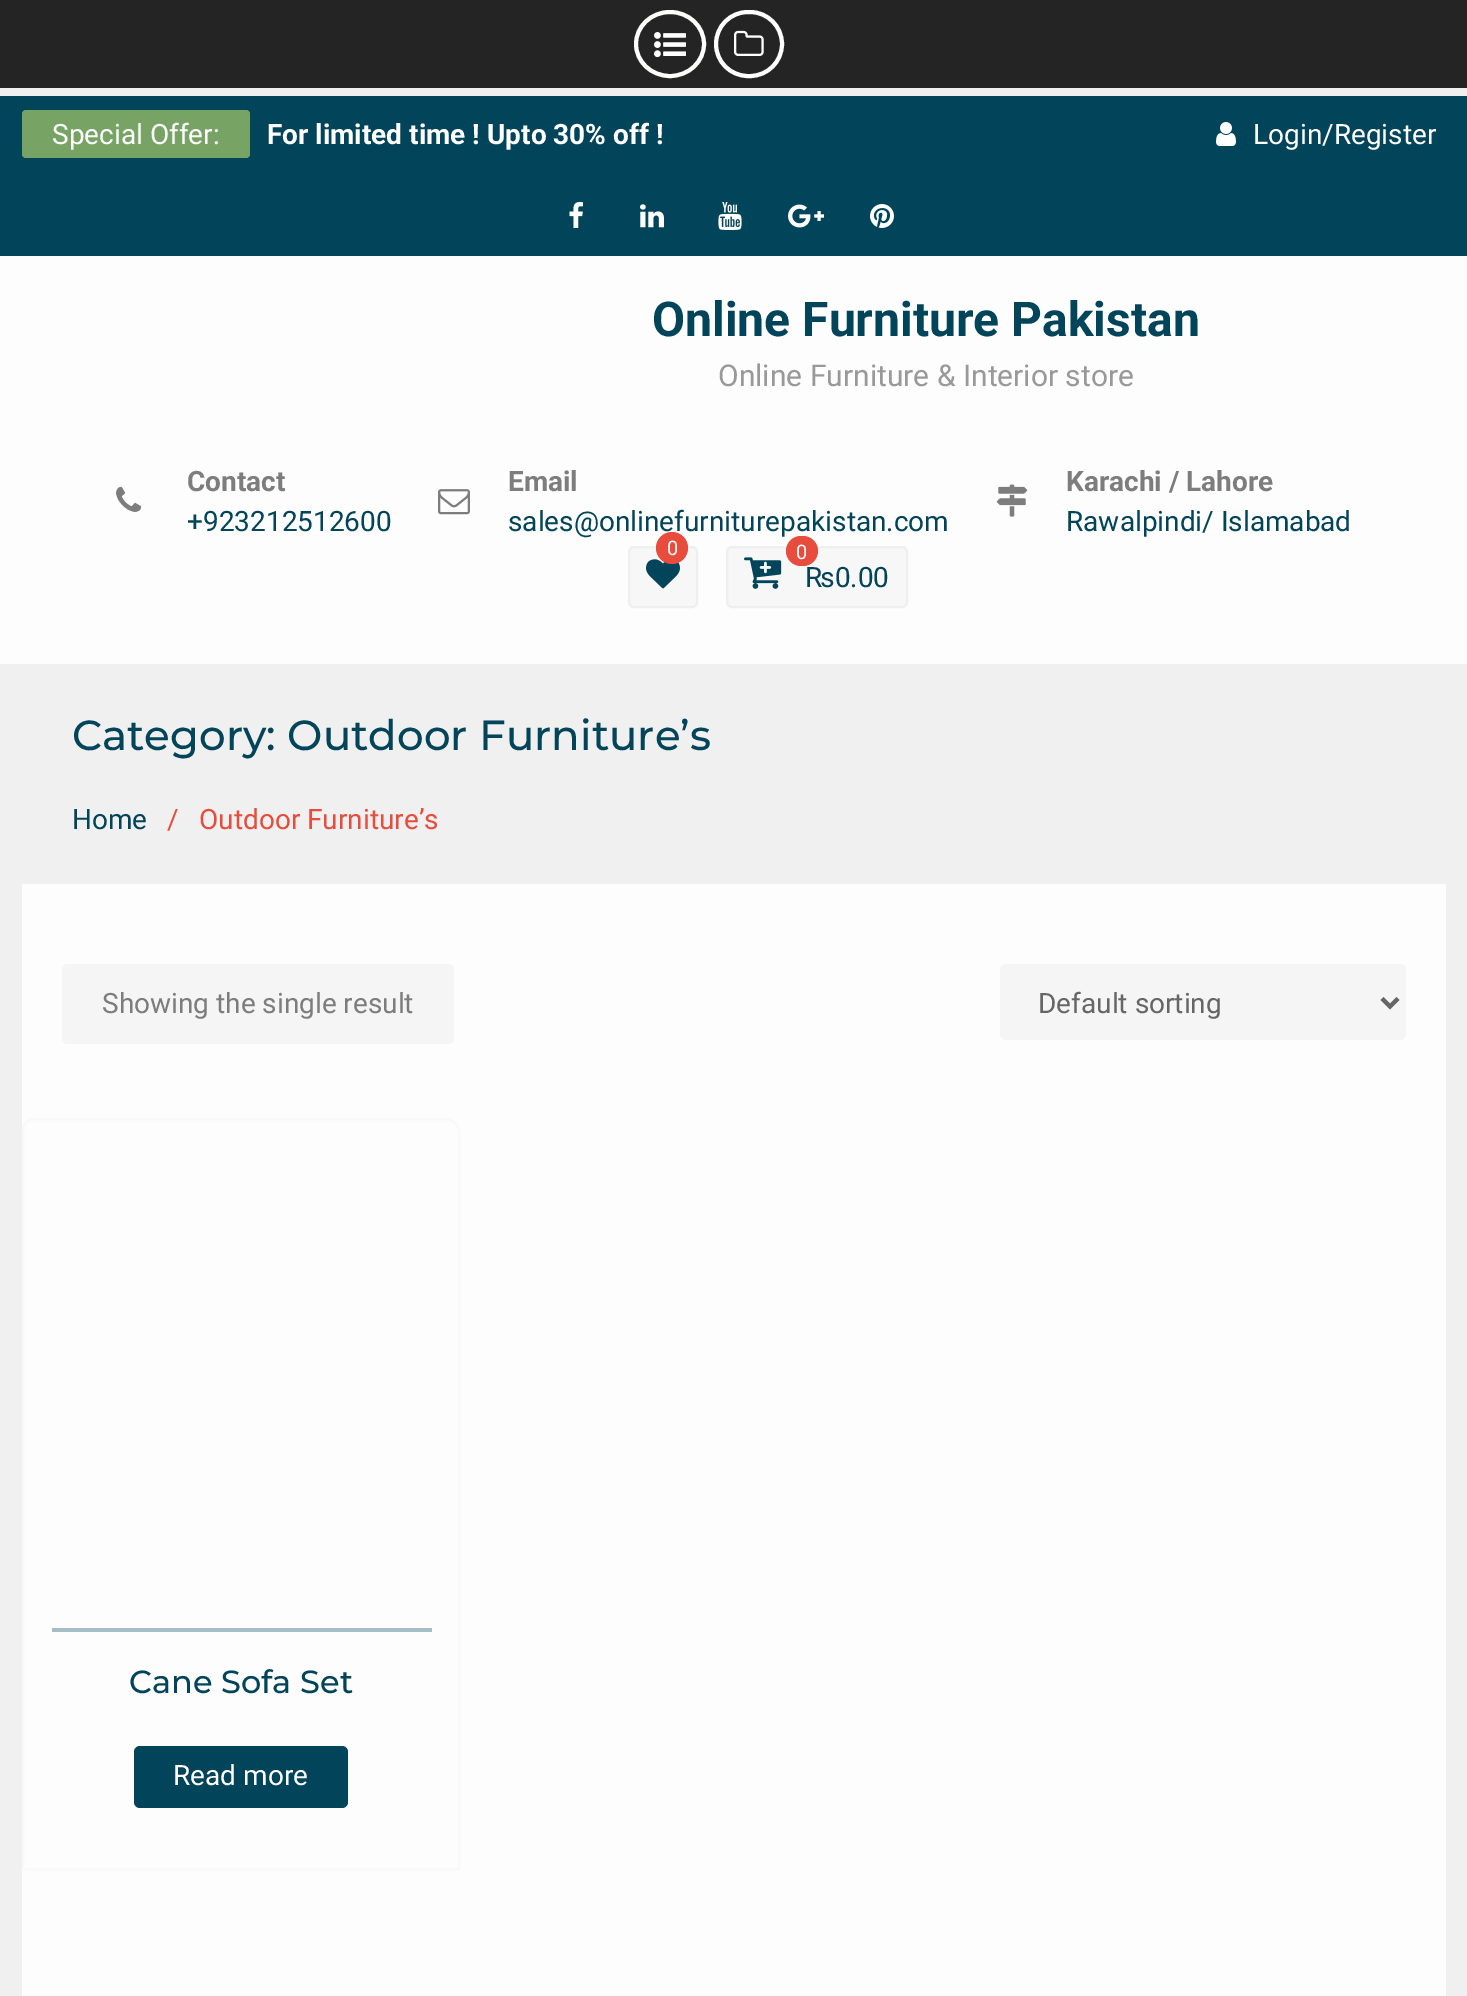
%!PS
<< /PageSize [1467 1996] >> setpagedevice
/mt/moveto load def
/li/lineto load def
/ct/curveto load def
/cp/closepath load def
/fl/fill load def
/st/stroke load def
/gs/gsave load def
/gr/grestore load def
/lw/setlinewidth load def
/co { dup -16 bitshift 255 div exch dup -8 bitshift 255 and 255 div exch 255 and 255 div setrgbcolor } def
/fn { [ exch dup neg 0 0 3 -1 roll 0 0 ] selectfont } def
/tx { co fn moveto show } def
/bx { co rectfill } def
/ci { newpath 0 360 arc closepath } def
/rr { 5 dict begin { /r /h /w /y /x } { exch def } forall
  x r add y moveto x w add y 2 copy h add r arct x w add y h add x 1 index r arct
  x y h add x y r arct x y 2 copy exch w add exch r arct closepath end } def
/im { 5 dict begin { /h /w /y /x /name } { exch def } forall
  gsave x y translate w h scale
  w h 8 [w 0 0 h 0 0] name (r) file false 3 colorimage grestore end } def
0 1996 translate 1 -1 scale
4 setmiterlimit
0 0 1467 1996 16#F1F0F0 bx
0 0 1467 88 16#242424 bx
16#FFFFFE co
4 lw
670 12 mt 689 12 704 26.5 704 44 ct 704 61.5 689 76 670 76 ct 651 76 636 61.5 636 44 ct 636 26.5 651 12 670 12 ct cp st
(media/1.raw) 654 32 32 26 im
16#FFFFFF co
716 12 66 64 32 rr st
(media/2.raw) 734 30 30 26 im
0 96 1467 160 16#024459 bx
16#77A464 co
22 110 228 48 4 rr fl
(media/3.raw) 1216 122 20 24 im
(media/4.raw) 569 202 14 26 im
(media/5.raw) 640 204 24 24 im
(media/6.raw) 718 202 24 28 im
(media/7.raw) 788 204 36 24 im
(media/8.raw) 870 204 24 24 im
0 256 1467 408 16#FDFDFD bx
(media/9.raw) 116 486 26 26 im
(media/10.raw) 438 489 32 26 im
(media/11.raw) 996 484 32 33 im
16#F7F7F7 co
629 547 68 60 5 rr gs fl gr
16#EFEFEF co
2 lw
st
(media/12.raw) 646 559 34 30 im
16#F7F7F7 co
727 547 180 60 5 rr gs fl gr
16#EFEFEF co
st
(media/13.raw) 744 557 38 32 im
22 884 1424 1112 16#FDFDFD bx
16#F5F5F5 co
62 964 392 80 6 rr fl
1000 964 406 76 6 rr fl
16#666666 co
4 lw
1382 998.5 mt 1390 1006.5 li 1398 998.5 li st
16#F9F9F9 co
2 lw
34 1119 mt 446 1119 li 453 1119 459 1125 459 1132 ct 459 1869 li 23 1869 li 23 1130 li 23 1124 28 1119 34 1119 ct cp st
52 1628 380 4 16#A5BDC4 bx
16#024459 co
134 1746 214 62 6 rr fl
(Special Offer:) 52 144 /Roboto-Regular 28 16#FFFFFF tx
(For limited time ! Upto 30% off !) 267 144 /Roboto-Bold 28 16#FFFFFF tx
(Login/Register) 1253 144 /Roboto-Regular 28 16#FFFFFF tx
(Online Furniture Pakistan) 652 336 /Roboto-Bold 48 16#024459 tx
(Online Furniture & Interior store) 718 386 /Roboto-Regular 30 16#999999 tx
(Contact) 187 491 /Roboto-Bold 28 16#7D7D7D tx
(+923212512600) 187 531 /Roboto-Regular 28 16#024459 tx
(Email) 508 491 /Roboto-Bold 28 16#7D7D7D tx
(sales@onlinefurniturepakistan.com) 508 531 /Roboto-Regular 28 16#024459 tx
(Karachi / Lahore) 1066 491 /Roboto-Bold 28 16#7D7D7D tx
(Rawalpindi/ Islamabad) 1066 531 /Roboto-Regular 28 16#024459 tx
16#E74C3C co
672 548 16 ci fl
(0) 667 555 /Roboto-Regular 20 16#FFFFFF tx
16#E74C3C co
786 536 32 30 15 rr fl
(0) 796 559 /Roboto-Regular 20 16#FFFFFF tx
(₨0.00) 805 587 /Roboto-Regular 28 16#024459 tx
(Category: Outdoor Furniture’s) 72 750 /Montserrat-Medium 42 16#024459 tx
(Home) 72 829 /Roboto-Regular 28 16#024459 tx
(/) 167 829 /Roboto-Regular 28 16#E74C3C tx
(Outdoor Furniture’s) 199 829 /Roboto-Regular 28 16#E74C3C tx
(Showing the single result) 102 1013 /Roboto-Regular 28 16#7D7D7D tx
(Default sorting) 1038 1013 /Roboto-Regular 28 16#666666 tx
(Cane Sofa Set) 129 1693 /Montserrat-Medium 32 16#024459 tx
(Read more) 173 1785 /Roboto-Regular 28 16#FFFFFF tx
showpage
